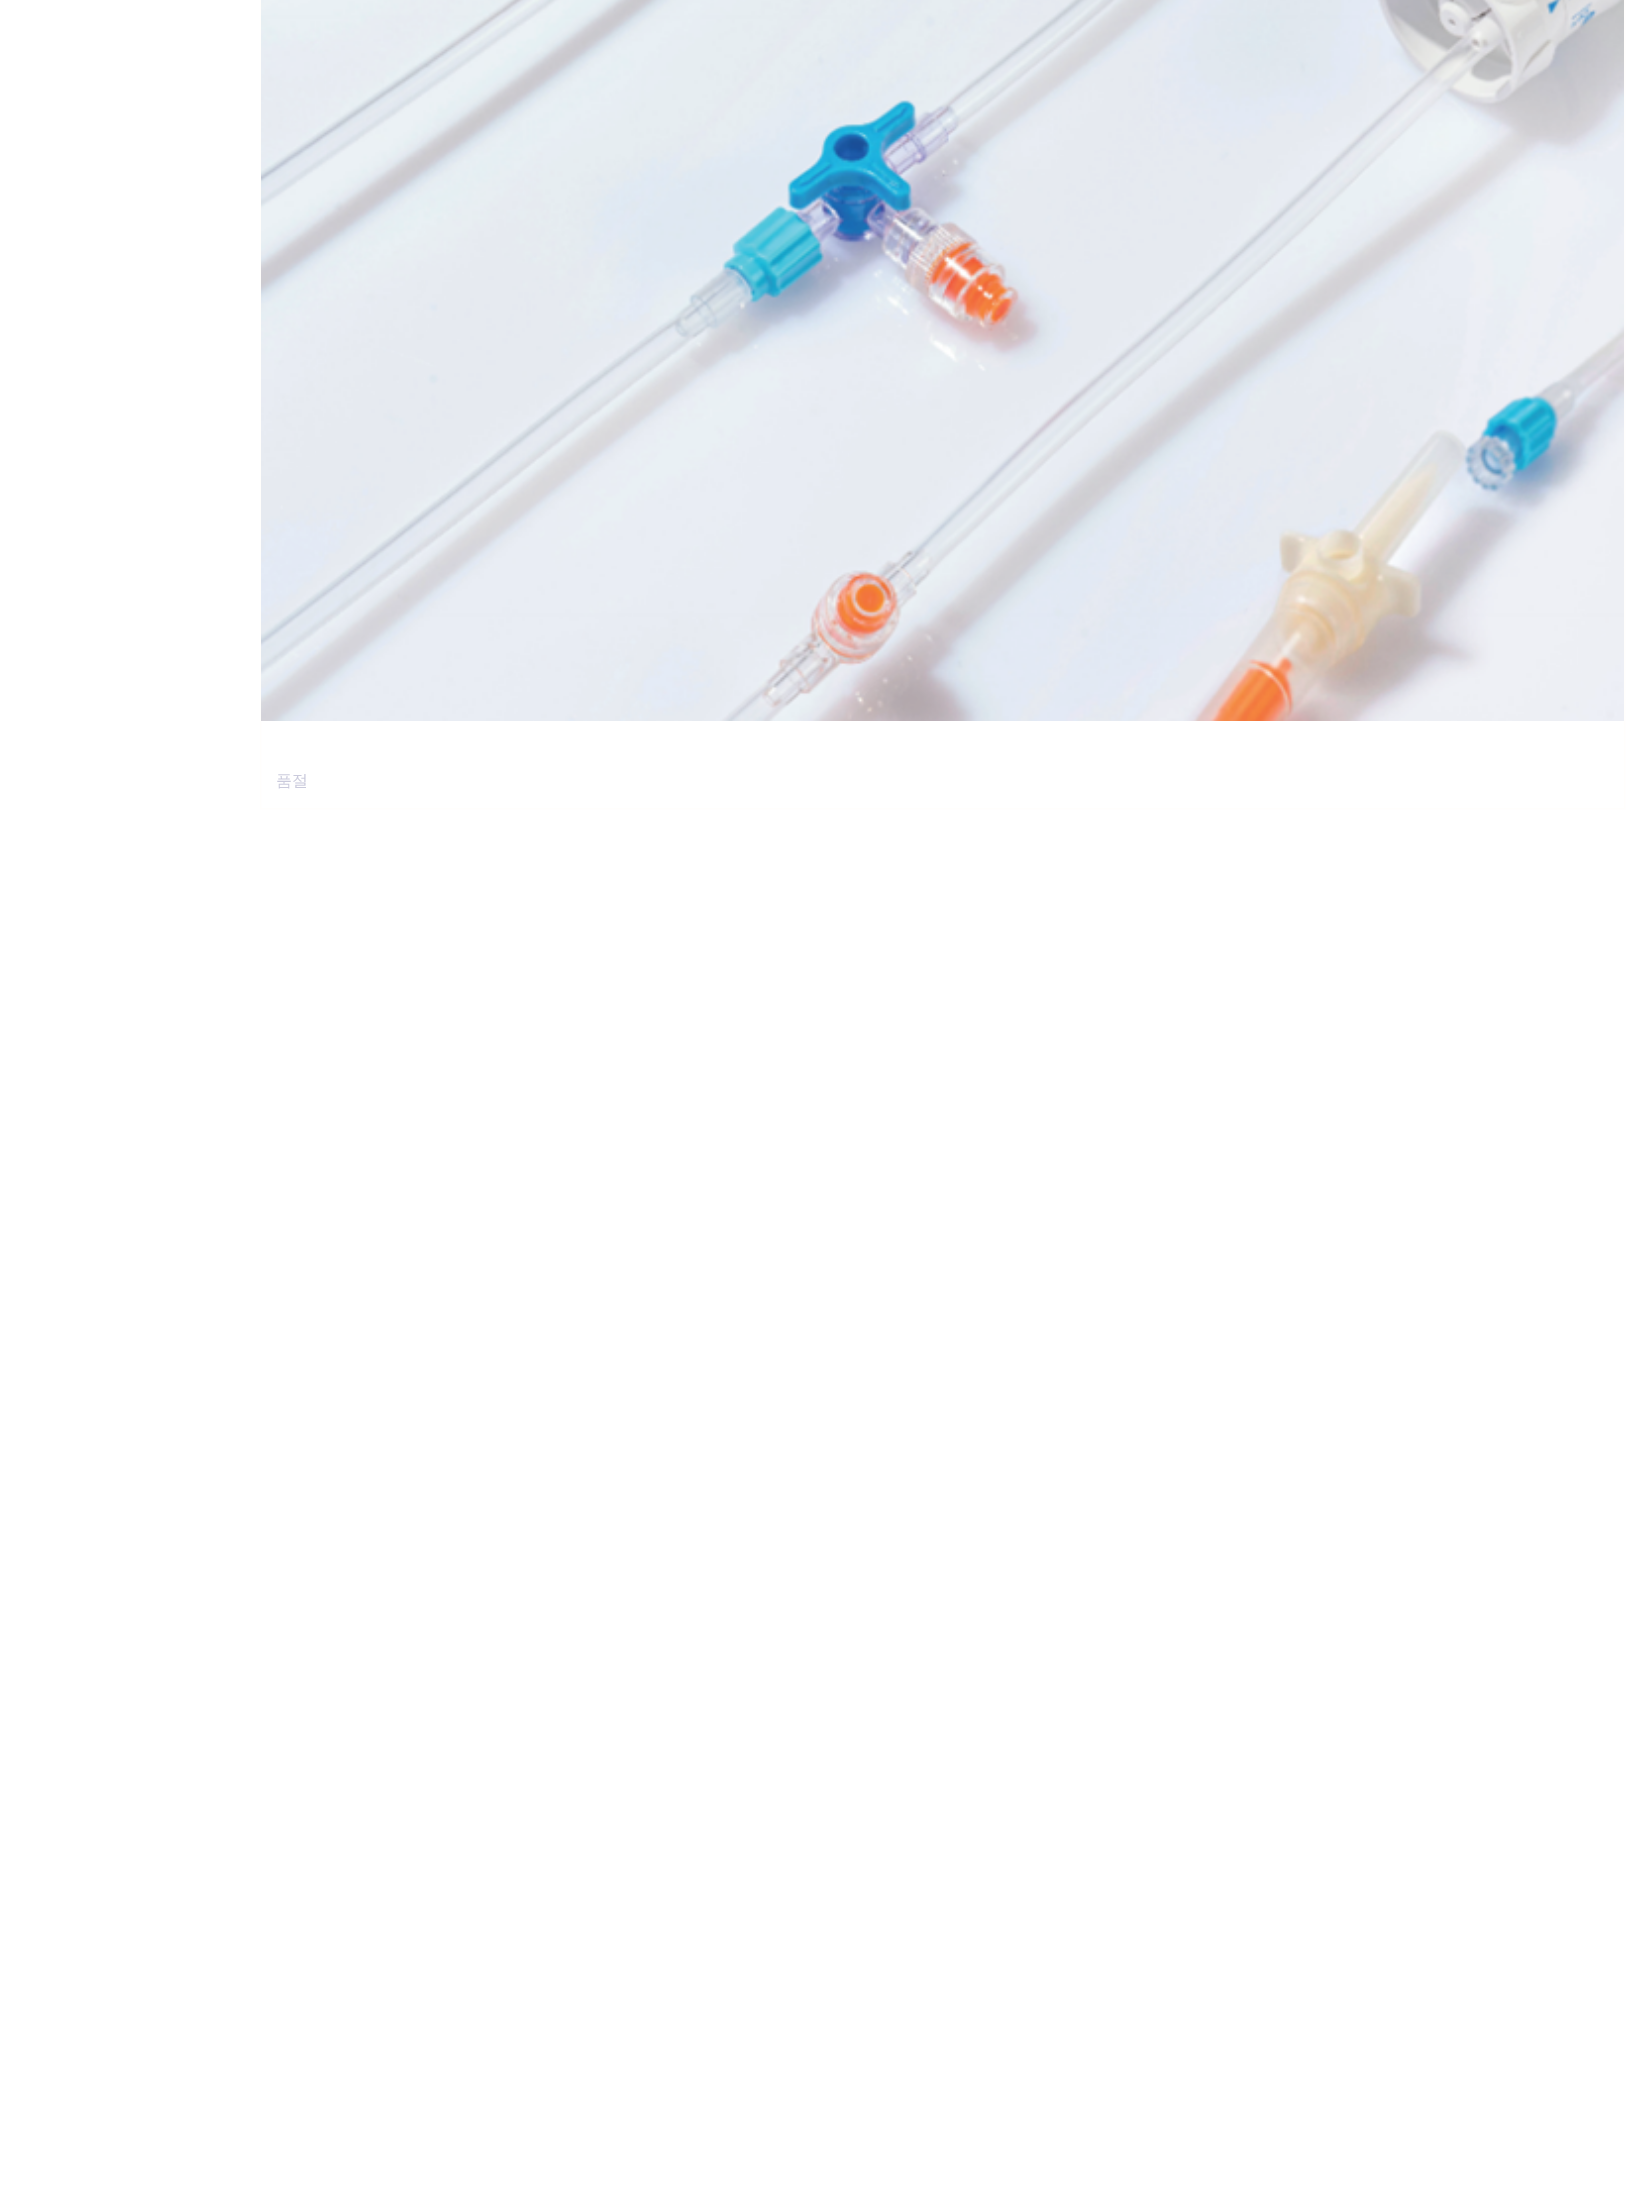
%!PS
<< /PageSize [1645 2212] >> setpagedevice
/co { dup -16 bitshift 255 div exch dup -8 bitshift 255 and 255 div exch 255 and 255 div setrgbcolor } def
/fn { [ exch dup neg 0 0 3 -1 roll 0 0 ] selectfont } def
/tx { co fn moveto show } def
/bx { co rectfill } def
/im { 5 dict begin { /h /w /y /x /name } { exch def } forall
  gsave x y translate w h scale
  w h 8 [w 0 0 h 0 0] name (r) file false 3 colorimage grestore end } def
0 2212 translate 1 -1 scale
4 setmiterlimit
0 0 1645 2212 16#FFFFFF bx
16#FFFEFC co
260.5 -.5 1364 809 rectstroke
(media/1.raw) 261 0 1363 721 im
(품절) 276 786 /WenQuanYiZenHei-Medium 16 16#CACADC tx
showpage
